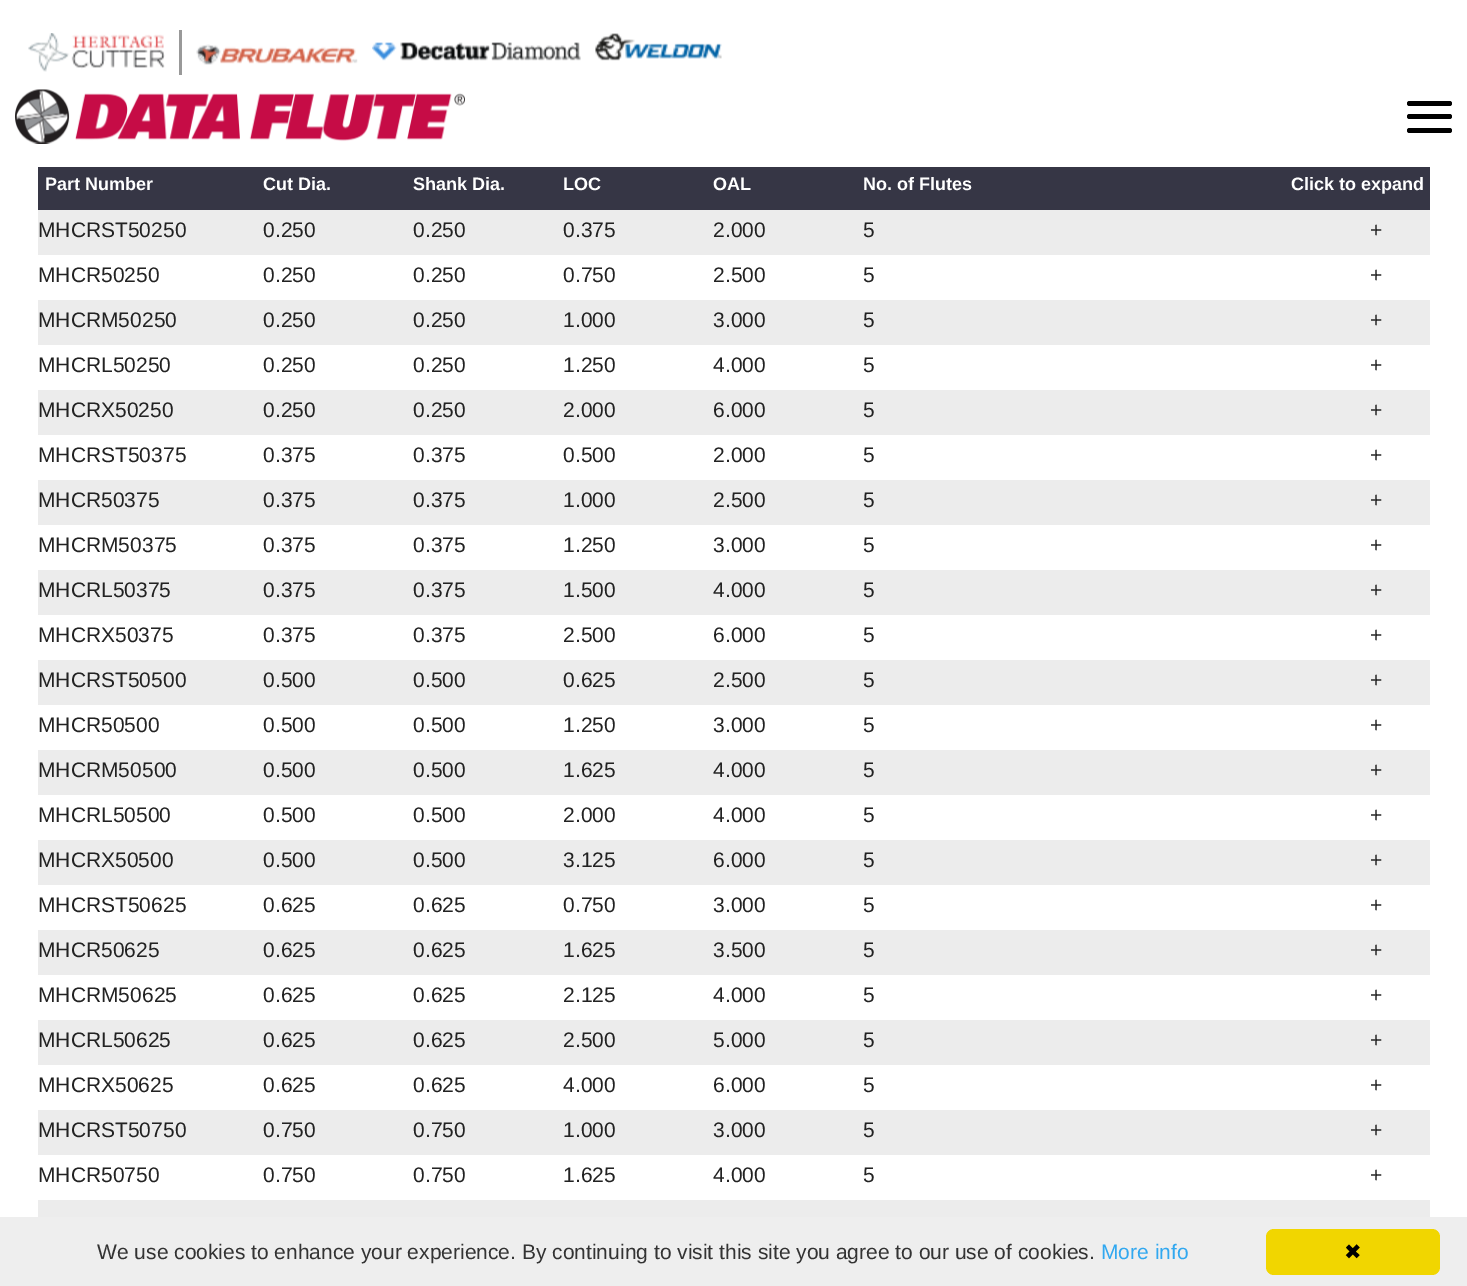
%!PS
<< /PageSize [1467 1286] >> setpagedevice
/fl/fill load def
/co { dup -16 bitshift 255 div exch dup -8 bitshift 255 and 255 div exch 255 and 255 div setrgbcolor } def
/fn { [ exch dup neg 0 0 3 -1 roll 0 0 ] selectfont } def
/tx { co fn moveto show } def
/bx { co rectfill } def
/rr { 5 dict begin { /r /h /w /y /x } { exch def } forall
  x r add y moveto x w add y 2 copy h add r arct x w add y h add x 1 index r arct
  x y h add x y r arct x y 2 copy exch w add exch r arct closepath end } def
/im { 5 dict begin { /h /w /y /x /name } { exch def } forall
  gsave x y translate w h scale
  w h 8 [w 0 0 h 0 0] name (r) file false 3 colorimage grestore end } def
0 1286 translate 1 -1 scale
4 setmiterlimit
0 0 1467 1286 16#FFFFFF bx
(media/1.raw) 28 33 137 39 im
179 30 3 45 16#999999 bx
(media/2.raw) 196 44 162 21 im
(media/3.raw) 372 42 209 19 im
(media/4.raw) 595 33 127 28 im
(media/5.raw) 15 89 450 55 im
16#000000 co
1407 101 45 5 2.5 rr fl
1407 114 45 5 2.5 rr fl
1407 128 45 5 2.5 rr fl
38 167 1392 43 16#363645 bx
38 210 1392 45 16#ECECEC bx
38 300 1392 45 16#ECECEC bx
38 390 1392 45 16#ECECEC bx
38 480 1392 45 16#ECECEC bx
38 570 1392 45 16#ECECEC bx
38 660 1392 45 16#ECECEC bx
38 750 1392 45 16#ECECEC bx
38 840 1392 45 16#ECECEC bx
38 930 1392 45 16#ECECEC bx
38 1020 1392 45 16#ECECEC bx
38 1110 1392 45 16#ECECEC bx
38 1200 1392 17 16#ECECEC bx
0 1217 1467 69 16#EEEEEE bx
16#F1D600 co
1266 1229 174 46 8 rr fl
(Part Number) 45 190 /LiberationSans-Bold 18 16#FFFFFF tx
(Cut Dia.) 263 190 /LiberationSans-Bold 18 16#FFFFFF tx
(Shank Dia.) 413 190 /LiberationSans-Bold 18 16#FFFFFF tx
(LOC) 563 190 /LiberationSans-Bold 18 16#FFFFFF tx
(OAL) 713 190 /LiberationSans-Bold 18 16#FFFFFF tx
(No. of Flutes) 863 190 /LiberationSans-Bold 18 16#FFFFFF tx
(Click to expand) 1291 190 /LiberationSans-Bold 18 16#FFFFFF tx
(MHCRST50250) 38 237 /LiberationSans-Regular 21 16#222222 tx
(0.250) 263 237 /LiberationSans-Regular 21 16#222222 tx
(0.250) 413 237 /LiberationSans-Regular 21 16#222222 tx
(0.375) 563 237 /LiberationSans-Regular 21 16#222222 tx
(2.000) 713 237 /LiberationSans-Regular 21 16#222222 tx
(5) 863 237 /LiberationSans-Regular 21 16#222222 tx
(+) 1370 237 /LiberationSans-Regular 21 16#222222 tx
(MHCR50250) 38 282 /LiberationSans-Regular 21 16#222222 tx
(0.250) 263 282 /LiberationSans-Regular 21 16#222222 tx
(0.250) 413 282 /LiberationSans-Regular 21 16#222222 tx
(0.750) 563 282 /LiberationSans-Regular 21 16#222222 tx
(2.500) 713 282 /LiberationSans-Regular 21 16#222222 tx
(5) 863 282 /LiberationSans-Regular 21 16#222222 tx
(+) 1370 282 /LiberationSans-Regular 21 16#222222 tx
(MHCRM50250) 38 327 /LiberationSans-Regular 21 16#222222 tx
(0.250) 263 327 /LiberationSans-Regular 21 16#222222 tx
(0.250) 413 327 /LiberationSans-Regular 21 16#222222 tx
(1.000) 563 327 /LiberationSans-Regular 21 16#222222 tx
(3.000) 713 327 /LiberationSans-Regular 21 16#222222 tx
(5) 863 327 /LiberationSans-Regular 21 16#222222 tx
(+) 1370 327 /LiberationSans-Regular 21 16#222222 tx
(MHCRL50250) 38 372 /LiberationSans-Regular 21 16#222222 tx
(0.250) 263 372 /LiberationSans-Regular 21 16#222222 tx
(0.250) 413 372 /LiberationSans-Regular 21 16#222222 tx
(1.250) 563 372 /LiberationSans-Regular 21 16#222222 tx
(4.000) 713 372 /LiberationSans-Regular 21 16#222222 tx
(5) 863 372 /LiberationSans-Regular 21 16#222222 tx
(+) 1370 372 /LiberationSans-Regular 21 16#222222 tx
(MHCRX50250) 38 417 /LiberationSans-Regular 21 16#222222 tx
(0.250) 263 417 /LiberationSans-Regular 21 16#222222 tx
(0.250) 413 417 /LiberationSans-Regular 21 16#222222 tx
(2.000) 563 417 /LiberationSans-Regular 21 16#222222 tx
(6.000) 713 417 /LiberationSans-Regular 21 16#222222 tx
(5) 863 417 /LiberationSans-Regular 21 16#222222 tx
(+) 1370 417 /LiberationSans-Regular 21 16#222222 tx
(MHCRST50375) 38 462 /LiberationSans-Regular 21 16#222222 tx
(0.375) 263 462 /LiberationSans-Regular 21 16#222222 tx
(0.375) 413 462 /LiberationSans-Regular 21 16#222222 tx
(0.500) 563 462 /LiberationSans-Regular 21 16#222222 tx
(2.000) 713 462 /LiberationSans-Regular 21 16#222222 tx
(5) 863 462 /LiberationSans-Regular 21 16#222222 tx
(+) 1370 462 /LiberationSans-Regular 21 16#222222 tx
(MHCR50375) 38 507 /LiberationSans-Regular 21 16#222222 tx
(0.375) 263 507 /LiberationSans-Regular 21 16#222222 tx
(0.375) 413 507 /LiberationSans-Regular 21 16#222222 tx
(1.000) 563 507 /LiberationSans-Regular 21 16#222222 tx
(2.500) 713 507 /LiberationSans-Regular 21 16#222222 tx
(5) 863 507 /LiberationSans-Regular 21 16#222222 tx
(+) 1370 507 /LiberationSans-Regular 21 16#222222 tx
(MHCRM50375) 38 552 /LiberationSans-Regular 21 16#222222 tx
(0.375) 263 552 /LiberationSans-Regular 21 16#222222 tx
(0.375) 413 552 /LiberationSans-Regular 21 16#222222 tx
(1.250) 563 552 /LiberationSans-Regular 21 16#222222 tx
(3.000) 713 552 /LiberationSans-Regular 21 16#222222 tx
(5) 863 552 /LiberationSans-Regular 21 16#222222 tx
(+) 1370 552 /LiberationSans-Regular 21 16#222222 tx
(MHCRL50375) 38 597 /LiberationSans-Regular 21 16#222222 tx
(0.375) 263 597 /LiberationSans-Regular 21 16#222222 tx
(0.375) 413 597 /LiberationSans-Regular 21 16#222222 tx
(1.500) 563 597 /LiberationSans-Regular 21 16#222222 tx
(4.000) 713 597 /LiberationSans-Regular 21 16#222222 tx
(5) 863 597 /LiberationSans-Regular 21 16#222222 tx
(+) 1370 597 /LiberationSans-Regular 21 16#222222 tx
(MHCRX50375) 38 642 /LiberationSans-Regular 21 16#222222 tx
(0.375) 263 642 /LiberationSans-Regular 21 16#222222 tx
(0.375) 413 642 /LiberationSans-Regular 21 16#222222 tx
(2.500) 563 642 /LiberationSans-Regular 21 16#222222 tx
(6.000) 713 642 /LiberationSans-Regular 21 16#222222 tx
(5) 863 642 /LiberationSans-Regular 21 16#222222 tx
(+) 1370 642 /LiberationSans-Regular 21 16#222222 tx
(MHCRST50500) 38 687 /LiberationSans-Regular 21 16#222222 tx
(0.500) 263 687 /LiberationSans-Regular 21 16#222222 tx
(0.500) 413 687 /LiberationSans-Regular 21 16#222222 tx
(0.625) 563 687 /LiberationSans-Regular 21 16#222222 tx
(2.500) 713 687 /LiberationSans-Regular 21 16#222222 tx
(5) 863 687 /LiberationSans-Regular 21 16#222222 tx
(+) 1370 687 /LiberationSans-Regular 21 16#222222 tx
(MHCR50500) 38 732 /LiberationSans-Regular 21 16#222222 tx
(0.500) 263 732 /LiberationSans-Regular 21 16#222222 tx
(0.500) 413 732 /LiberationSans-Regular 21 16#222222 tx
(1.250) 563 732 /LiberationSans-Regular 21 16#222222 tx
(3.000) 713 732 /LiberationSans-Regular 21 16#222222 tx
(5) 863 732 /LiberationSans-Regular 21 16#222222 tx
(+) 1370 732 /LiberationSans-Regular 21 16#222222 tx
(MHCRM50500) 38 777 /LiberationSans-Regular 21 16#222222 tx
(0.500) 263 777 /LiberationSans-Regular 21 16#222222 tx
(0.500) 413 777 /LiberationSans-Regular 21 16#222222 tx
(1.625) 563 777 /LiberationSans-Regular 21 16#222222 tx
(4.000) 713 777 /LiberationSans-Regular 21 16#222222 tx
(5) 863 777 /LiberationSans-Regular 21 16#222222 tx
(+) 1370 777 /LiberationSans-Regular 21 16#222222 tx
(MHCRL50500) 38 822 /LiberationSans-Regular 21 16#222222 tx
(0.500) 263 822 /LiberationSans-Regular 21 16#222222 tx
(0.500) 413 822 /LiberationSans-Regular 21 16#222222 tx
(2.000) 563 822 /LiberationSans-Regular 21 16#222222 tx
(4.000) 713 822 /LiberationSans-Regular 21 16#222222 tx
(5) 863 822 /LiberationSans-Regular 21 16#222222 tx
(+) 1370 822 /LiberationSans-Regular 21 16#222222 tx
(MHCRX50500) 38 867 /LiberationSans-Regular 21 16#222222 tx
(0.500) 263 867 /LiberationSans-Regular 21 16#222222 tx
(0.500) 413 867 /LiberationSans-Regular 21 16#222222 tx
(3.125) 563 867 /LiberationSans-Regular 21 16#222222 tx
(6.000) 713 867 /LiberationSans-Regular 21 16#222222 tx
(5) 863 867 /LiberationSans-Regular 21 16#222222 tx
(+) 1370 867 /LiberationSans-Regular 21 16#222222 tx
(MHCRST50625) 38 912 /LiberationSans-Regular 21 16#222222 tx
(0.625) 263 912 /LiberationSans-Regular 21 16#222222 tx
(0.625) 413 912 /LiberationSans-Regular 21 16#222222 tx
(0.750) 563 912 /LiberationSans-Regular 21 16#222222 tx
(3.000) 713 912 /LiberationSans-Regular 21 16#222222 tx
(5) 863 912 /LiberationSans-Regular 21 16#222222 tx
(+) 1370 912 /LiberationSans-Regular 21 16#222222 tx
(MHCR50625) 38 957 /LiberationSans-Regular 21 16#222222 tx
(0.625) 263 957 /LiberationSans-Regular 21 16#222222 tx
(0.625) 413 957 /LiberationSans-Regular 21 16#222222 tx
(1.625) 563 957 /LiberationSans-Regular 21 16#222222 tx
(3.500) 713 957 /LiberationSans-Regular 21 16#222222 tx
(5) 863 957 /LiberationSans-Regular 21 16#222222 tx
(+) 1370 957 /LiberationSans-Regular 21 16#222222 tx
(MHCRM50625) 38 1002 /LiberationSans-Regular 21 16#222222 tx
(0.625) 263 1002 /LiberationSans-Regular 21 16#222222 tx
(0.625) 413 1002 /LiberationSans-Regular 21 16#222222 tx
(2.125) 563 1002 /LiberationSans-Regular 21 16#222222 tx
(4.000) 713 1002 /LiberationSans-Regular 21 16#222222 tx
(5) 863 1002 /LiberationSans-Regular 21 16#222222 tx
(+) 1370 1002 /LiberationSans-Regular 21 16#222222 tx
(MHCRL50625) 38 1047 /LiberationSans-Regular 21 16#222222 tx
(0.625) 263 1047 /LiberationSans-Regular 21 16#222222 tx
(0.625) 413 1047 /LiberationSans-Regular 21 16#222222 tx
(2.500) 563 1047 /LiberationSans-Regular 21 16#222222 tx
(5.000) 713 1047 /LiberationSans-Regular 21 16#222222 tx
(5) 863 1047 /LiberationSans-Regular 21 16#222222 tx
(+) 1370 1047 /LiberationSans-Regular 21 16#222222 tx
(MHCRX50625) 38 1092 /LiberationSans-Regular 21 16#222222 tx
(0.625) 263 1092 /LiberationSans-Regular 21 16#222222 tx
(0.625) 413 1092 /LiberationSans-Regular 21 16#222222 tx
(4.000) 563 1092 /LiberationSans-Regular 21 16#222222 tx
(6.000) 713 1092 /LiberationSans-Regular 21 16#222222 tx
(5) 863 1092 /LiberationSans-Regular 21 16#222222 tx
(+) 1370 1092 /LiberationSans-Regular 21 16#222222 tx
(MHCRST50750) 38 1137 /LiberationSans-Regular 21 16#222222 tx
(0.750) 263 1137 /LiberationSans-Regular 21 16#222222 tx
(0.750) 413 1137 /LiberationSans-Regular 21 16#222222 tx
(1.000) 563 1137 /LiberationSans-Regular 21 16#222222 tx
(3.000) 713 1137 /LiberationSans-Regular 21 16#222222 tx
(5) 863 1137 /LiberationSans-Regular 21 16#222222 tx
(+) 1370 1137 /LiberationSans-Regular 21 16#222222 tx
(MHCR50750) 38 1182 /LiberationSans-Regular 21 16#222222 tx
(0.750) 263 1182 /LiberationSans-Regular 21 16#222222 tx
(0.750) 413 1182 /LiberationSans-Regular 21 16#222222 tx
(1.625) 563 1182 /LiberationSans-Regular 21 16#222222 tx
(4.000) 713 1182 /LiberationSans-Regular 21 16#222222 tx
(5) 863 1182 /LiberationSans-Regular 21 16#222222 tx
(+) 1370 1182 /LiberationSans-Regular 21 16#222222 tx
(We use cookies to enhance your experience. By continuing to visit this site you agree to our use of cookies.) 97 1259 /LiberationSans-Regular 21 16#333333 tx
(More info) 1101 1259 /LiberationSans-Regular 21 16#31A8F0 tx
(✖) 1344 1259 /DejaVuSans-Regular 21 16#000000 tx
showpage
